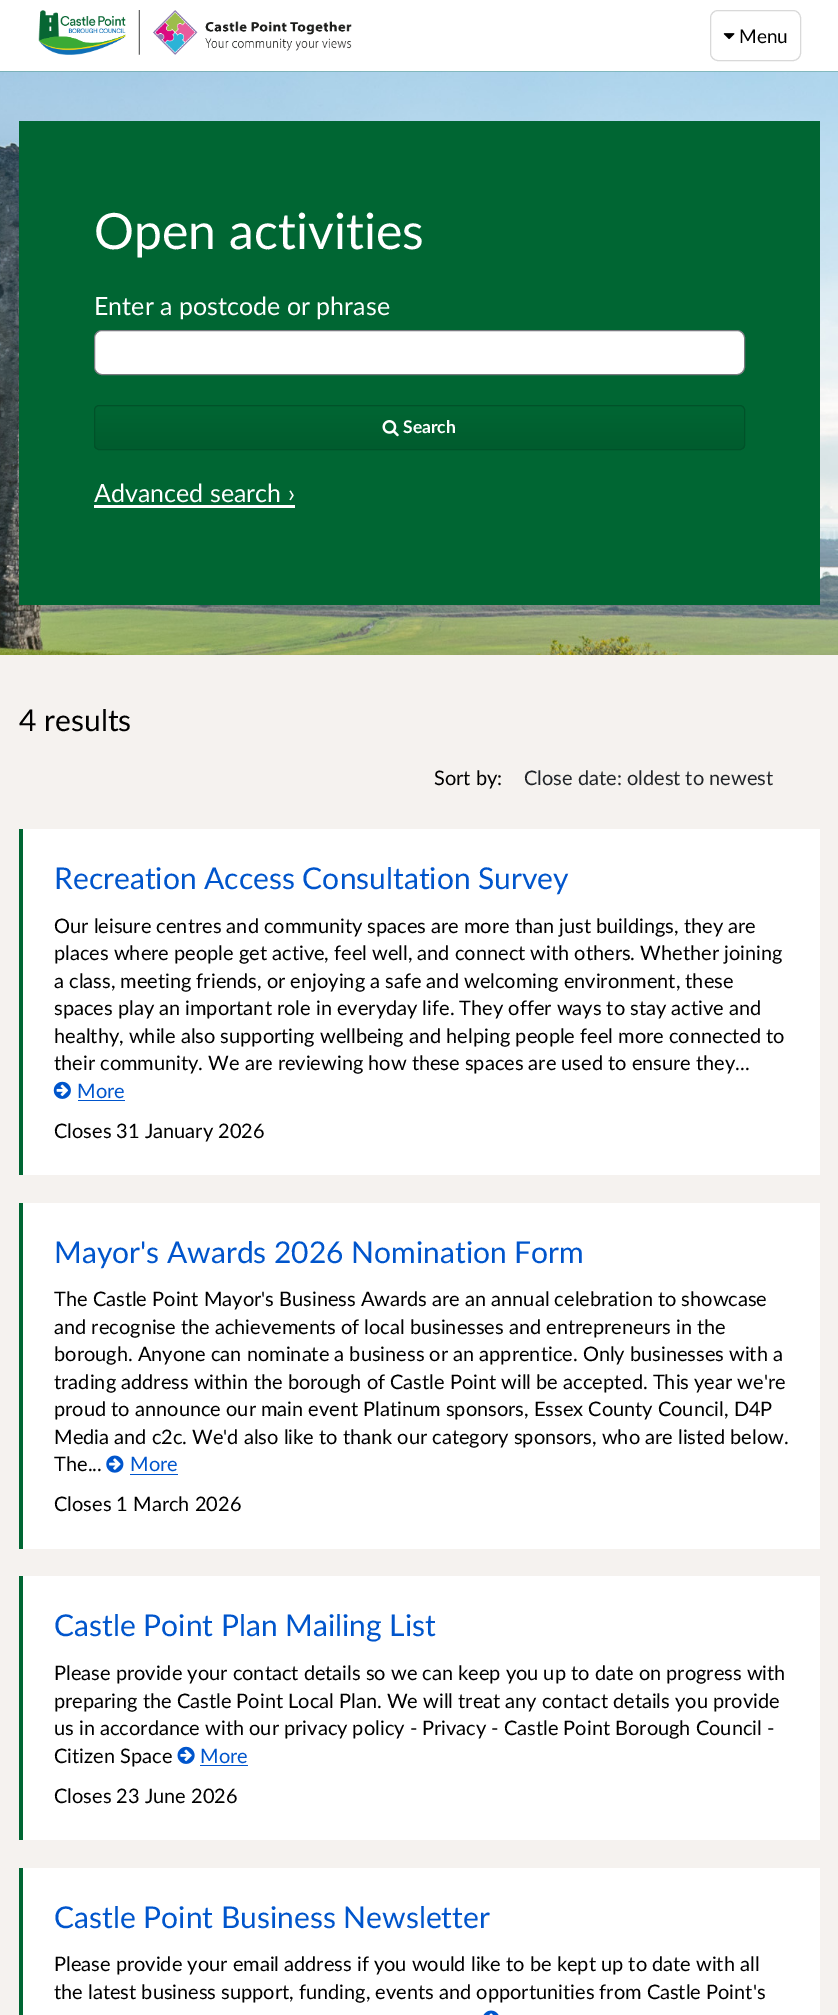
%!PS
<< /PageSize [838 2015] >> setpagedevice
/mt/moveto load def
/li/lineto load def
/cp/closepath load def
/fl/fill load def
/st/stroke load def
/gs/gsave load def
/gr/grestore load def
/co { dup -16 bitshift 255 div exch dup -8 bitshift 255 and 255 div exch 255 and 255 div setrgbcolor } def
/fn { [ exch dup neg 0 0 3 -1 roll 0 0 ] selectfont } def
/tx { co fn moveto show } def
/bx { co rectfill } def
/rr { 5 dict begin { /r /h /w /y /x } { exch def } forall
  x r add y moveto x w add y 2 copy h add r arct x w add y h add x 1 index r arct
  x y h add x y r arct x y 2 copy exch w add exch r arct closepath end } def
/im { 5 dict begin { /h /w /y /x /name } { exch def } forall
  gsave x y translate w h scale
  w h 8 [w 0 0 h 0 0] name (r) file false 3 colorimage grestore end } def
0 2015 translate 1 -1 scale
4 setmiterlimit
0 0 838 2015 16#FFFFFF bx
(media/1.raw) 38 10 314 45 im
16#D9D9D9 co
710.5 10.5 90 50 7.5 rr st
(media/2.raw) 723 33 12 7 im
(media/3.raw) 0 71 838 584 im
19 121 801 484 16#006633 bx
16#FFFFFF co
95 331 649 43 6 rr fl
16#7A7A80 co
94.5 330.5 650 44 7.5 rr st
gs
94 405 651 45 5 rr clip newpath
gs 94 406 mt 745 406 li 745 449 li 94 449 li cp clip newpath
<< /ShadingType 2 /ColorSpace /DeviceRGB /Coords [419 406 419 449] /Extend [true true] /Function << /FunctionType 2 /Domain [0 1] /C0 [0 .4 .2] /C1 [0 .361 .18] /N 1 >> >> shfill gr
gr
16#005229 co
94.5 405.5 650 44 4.5 rr st
(media/4.raw) 382 420 17 17 im
94 505 201 3 16#FFFFFF bx
0 655 838 1360 16#F5F2EF bx
23 829 797 346 16#FFFFFF bx
19 829 4 346 16#006633 bx
(media/5.raw) 53 1081 18 18 im
78 1100 47 1 16#0055CC bx
23 1203 797 346 16#FFFFFF bx
19 1203 4 346 16#006633 bx
(media/6.raw) 106 1455 18 18 im
130 1474 48 1 16#0055CC bx
23 1576 797 264 16#FFFFFF bx
19 1576 4 264 16#006633 bx
(media/7.raw) 177 1746 18 18 im
200 1765 48 1 16#0055CC bx
23 1868 797 147 16#FFFFFF bx
19 1868 4 147 16#006633 bx
(media/8.raw) 483 2010 16 5 im
(Menu) 739 43 /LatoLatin-Regular 19 16#000000 tx
(Open activities) 94 249 /LatoLatin-Regular 50 16#FFFFFF tx
(Enter a postcode or phrase) 94 315 /LatoLatin-Regular 25 16#FFFFFF tx
(Search) 403 433 /LatoLatin-Bold 17.5 16#FFFFFF tx
(Advanced search ›) 94 502 /LatoLatin-Regular 25 16#FFFFFF tx
(4 results) 19 731 /LatoLatin-Regular 30 16#000000 tx
(Sort by:) 434 785 /LatoLatin-Regular 20 16#000000 tx
(Close date: oldest to newest) 524 785 /LatoLatin-Regular 20 16#212529 tx
(Recreation Access Consultation Survey) 54 889 /LatoLatin-Regular 30 16#0055CC tx
(Our leisure centres and community spaces are more than just buildings, they are) 54 933 /LatoLatin-Regular 20 16#000000 tx
(places where people get active, feel well, and connect with others. Whether joining) 54 960 /LatoLatin-Regular 20 16#000000 tx
(a class, meeting friends, or enjoying a safe and welcoming environment, these) 54 988 /LatoLatin-Regular 20 16#000000 tx
(spaces play an important role in everyday life. They offer ways to stay active and) 54 1015 /LatoLatin-Regular 20 16#000000 tx
(healthy, while also supporting wellbeing and helping people feel more connected to) 54 1043 /LatoLatin-Regular 20 16#000000 tx
(their community. We are reviewing how these spaces are used to ensure they...) 54 1070 /LatoLatin-Regular 20 16#000000 tx
(More) 77 1098 /LatoLatin-Regular 20 16#0055CC tx
(Closes 31 January 2026) 54 1138 /LatoLatin-Regular 20 16#000000 tx
(Mayor's Awards 2026 Nomination Form) 54 1263 /LatoLatin-Regular 30 16#0055CC tx
(The Castle Point Mayor's Business Awards are an annual celebration to showcase) 54 1306 /LatoLatin-Regular 20 16#000000 tx
(and recognise the achievements of local businesses and entrepreneurs in the) 54 1334 /LatoLatin-Regular 20 16#000000 tx
(borough. Anyone can nominate a business or an apprentice. Only businesses with a) 54 1361 /LatoLatin-Regular 20 16#000000 tx
(trading address within the borough of Castle Point will be accepted. This year we're) 54 1389 /LatoLatin-Regular 20 16#000000 tx
(proud to announce our main event Platinum sponsors, Essex County Council, D4P) 54 1416 /LatoLatin-Regular 20 16#000000 tx
(Media and c2c. We'd also like to thank our category sponsors, who are listed below.) 54 1444 /LatoLatin-Regular 20 16#000000 tx
(The...) 54 1471 /LatoLatin-Regular 20 16#000000 tx
(More) 130 1471 /LatoLatin-Regular 20 16#0055CC tx
(Closes 1 March 2026) 54 1511 /LatoLatin-Regular 20 16#000000 tx
(Castle Point Plan Mailing List) 54 1636 /LatoLatin-Regular 30 16#0055CC tx
(Please provide your contact details so we can keep you up to date on progress with) 54 1680 /LatoLatin-Regular 20 16#000000 tx
(preparing the Castle Point Local Plan. We will treat any contact details you provide) 54 1708 /LatoLatin-Regular 20 16#000000 tx
(us in accordance with our privacy policy - Privacy - Castle Point Borough Council -) 54 1735 /LatoLatin-Regular 20 16#000000 tx
(Citizen Space) 54 1763 /LatoLatin-Regular 20 16#000000 tx
(More) 200 1763 /LatoLatin-Regular 20 16#0055CC tx
(Closes 23 June 2026) 54 1803 /LatoLatin-Regular 20 16#000000 tx
(Castle Point Business Newsletter) 54 1928 /LatoLatin-Regular 30 16#0055CC tx
(Please provide your email address if you would like to be kept up to date with all) 54 1971 /LatoLatin-Regular 20 16#000000 tx
(the latest business support, funding, events and opportunities from Castle Point's) 54 1999 /LatoLatin-Regular 20 16#000000 tx
showpage
